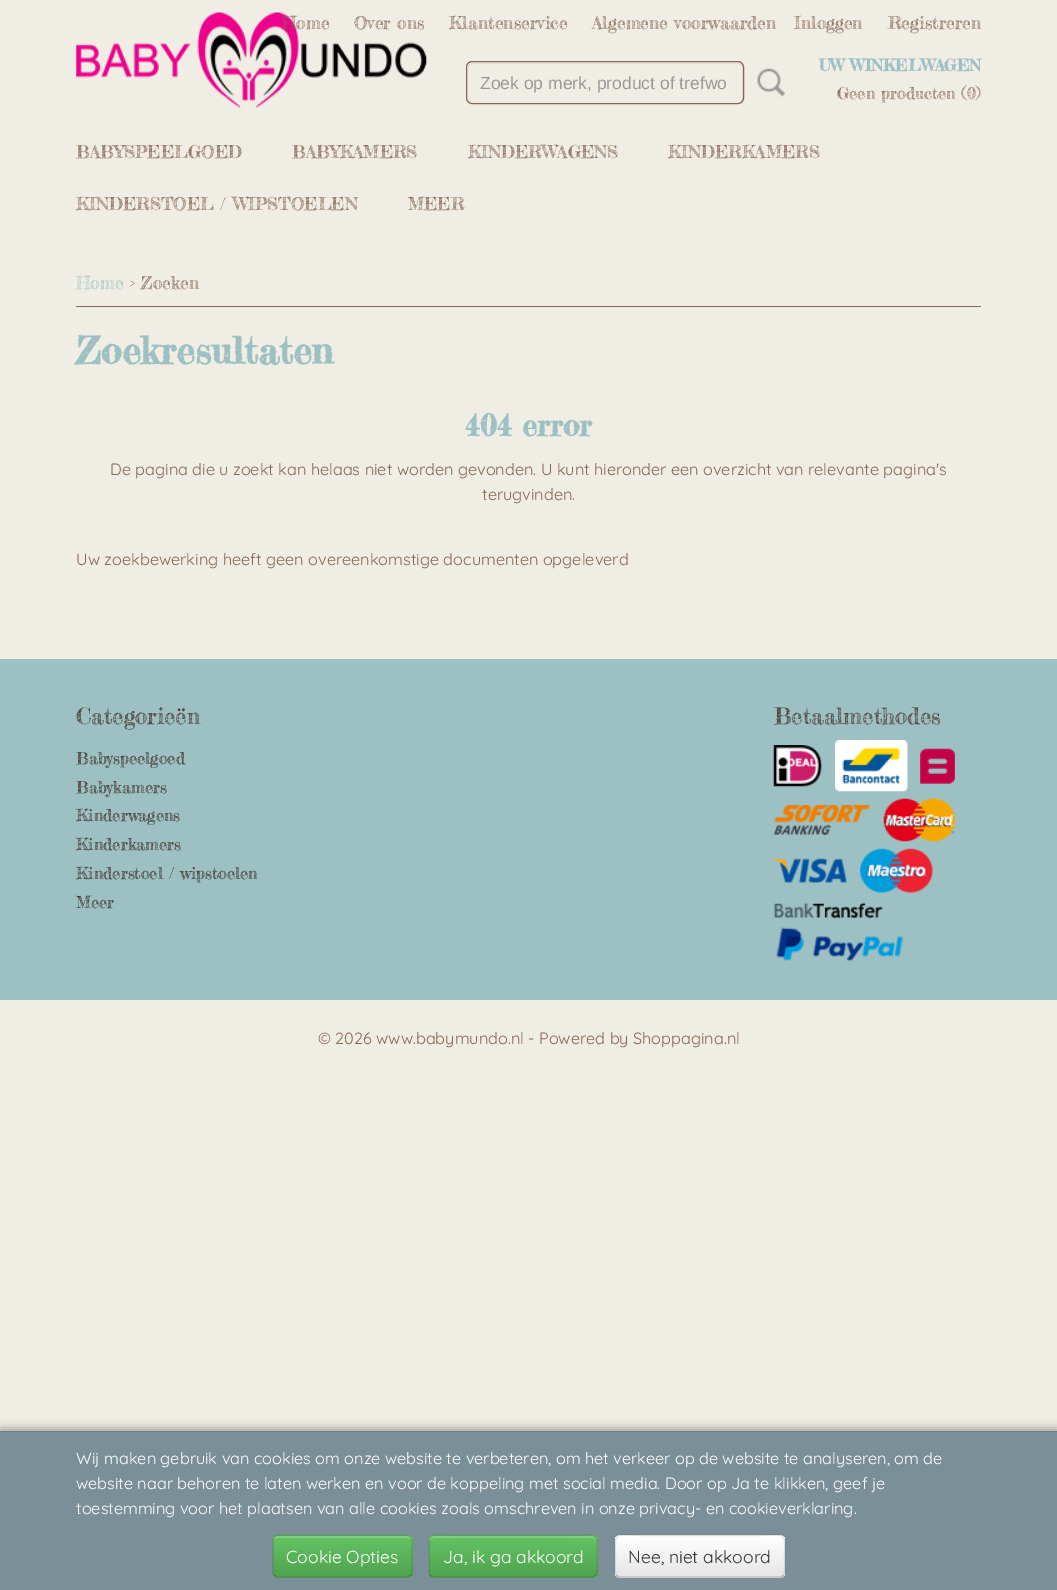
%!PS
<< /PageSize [1057 1590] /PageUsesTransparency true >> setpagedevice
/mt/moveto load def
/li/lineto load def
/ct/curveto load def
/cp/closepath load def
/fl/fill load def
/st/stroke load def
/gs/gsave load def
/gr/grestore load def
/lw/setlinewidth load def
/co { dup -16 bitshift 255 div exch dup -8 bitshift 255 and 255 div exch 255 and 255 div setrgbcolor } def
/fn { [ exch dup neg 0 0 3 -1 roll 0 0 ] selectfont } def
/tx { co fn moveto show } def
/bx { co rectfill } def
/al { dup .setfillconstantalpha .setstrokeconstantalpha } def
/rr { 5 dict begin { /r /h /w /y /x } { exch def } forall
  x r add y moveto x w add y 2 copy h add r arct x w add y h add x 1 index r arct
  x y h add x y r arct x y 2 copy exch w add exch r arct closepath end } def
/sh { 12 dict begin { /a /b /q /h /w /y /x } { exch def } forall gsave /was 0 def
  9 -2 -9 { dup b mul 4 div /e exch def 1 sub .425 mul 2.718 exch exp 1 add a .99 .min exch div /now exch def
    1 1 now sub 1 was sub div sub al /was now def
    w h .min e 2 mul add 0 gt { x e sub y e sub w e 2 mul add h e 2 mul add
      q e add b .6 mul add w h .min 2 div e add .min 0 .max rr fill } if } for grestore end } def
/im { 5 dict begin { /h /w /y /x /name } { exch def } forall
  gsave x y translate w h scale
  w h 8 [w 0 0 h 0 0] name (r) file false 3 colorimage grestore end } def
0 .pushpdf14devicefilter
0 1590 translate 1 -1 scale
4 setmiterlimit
0 0 1057 1590 16#F0EDE4 bx
(media/1.raw) 76 12 351 96 im
16#DEDBD3 co
472 64 mt 738 64 li 740 64 742 66 742 69 ct 742 99 li 741 102 li 742 101 743 99 743 98 ct 743 68 li 743 65 741 63 738 63 ct 473 63 li 470 63 468 65 468 68 ct 468 69 li 468 66 470 64 472 64 ct cp fl
16#876655 co
466.5 61.5 277 42 5.5 rr st
(media/2.raw) 757 68 28 29 im
76 306 905 1 16#876655 bx
0 659 1057 341 16#9DC0C2 bx
(media/3.raw) 773 745 49 42 im
(media/4.raw) 835 740 73 52 im
(media/5.raw) 920 748 35 36 im
(media/6.raw) 773 805 97 30 im
(media/7.raw) 883 798 72 44 im
(media/8.raw) 773 858 74 25 im
(media/9.raw) 860 848 73 45 im
(media/10.raw) 773 902 110 17 im
(media/11.raw) 776 927 128 35 im
16#000000 co
0 1428 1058 158 0 4.5 .3 sh
0 1432 1057 158 16#7A8F98 bx
0 1431 1057 1 16#697E87 bx
16#5BB75B co
273 1535 140 43 5 rr fl
gs
273 1535 140 43 5 rr clip newpath
gs 273 1536 mt 413 1536 li 413 1576 li 273 1576 li cp clip newpath
<< /ShadingType 2 /ColorSpace /DeviceRGB /Coords [343 1536 343 1576] /Extend [true true] /Function << /FunctionType 2 /Domain [0 1] /C0 [.384 .769 .384] /C1 [.318 .639 .318] /N 1 >> >> shfill gr
gr
16#81CF81 co
278 1538 mt 408 1538 li 410 1538 411 1539 411 1541 ct 411 1540 li 411 1538 409 1536 407 1536 ct 278 1536 li 276 1536 274 1538 274 1540 ct 274 1541 li 274 1539 275 1538 278 1538 ct cp fl
0.25 al
16#000000 co
1.2 lw
410.5 1575.5 mt 407.5 1577 li 277 1577 li 274.5 1575.5 li st
0.1 al
274.5 1575.5 mt 271.5 1573 273 1564.5 273 1561.5 ct 273 1545.5 li 273 1542 272 1535.5 277.5 1535.5 ct 407.5 1535.5 li 413 1535.5 412 1542 412 1545.5 ct 412 1561.5 li 412 1564.5 413.5 1573 410.5 1575.5 ct st
1 al
16#5BB75B co
429 1535 169 43 5 rr fl
gs
429 1535 169 43 5 rr clip newpath
gs 429 1536 mt 598 1536 li 598 1576 li 429 1576 li cp clip newpath
<< /ShadingType 2 /ColorSpace /DeviceRGB /Coords [513 1536 513 1576] /Extend [true true] /Function << /FunctionType 2 /Domain [0 1] /C0 [.384 .769 .384] /C1 [.318 .639 .318] /N 1 >> >> shfill gr
gr
0.2 al
16#FFFFFF co
434 1538 mt 593 1538 li 595 1539 li 596 1541 li 596 1540 li 596 1538 594 1536 592 1536 ct 434 1536 li 432 1536 430 1538 430 1540 ct 430 1541 li 430 1539 432 1538 434 1538 ct cp fl
0.25 al
16#000000 co
595.5 1575.5 mt 595 1576.5 593.5 1577 592.5 1577 ct 434 1577 li 432.5 1577 431.5 1576.5 430.5 1575.5 ct st
0.1 al
430.5 1575.5 mt 428 1573 429.5 1564.5 429.5 1561.5 ct 429.5 1529 424 1535.5 460 1535.5 ct 566 1535.5 li 602 1535.5 597 1529 597 1561.5 ct 597 1564.5 598.5 1573 595.5 1575.5 ct st
1 al
16#F5F5F5 co
615 1535 170 43 5 rr fl
gs
615 1535 170 43 5 rr clip newpath
gs 615 1536 mt 785 1536 li 785 1576 li 615 1576 li cp clip newpath
<< /ShadingType 2 /ColorSpace /DeviceRGB /Coords [700 1536 700 1576] /Extend [true true] /Function << /FunctionType 2 /Domain [0 1] /C0 [1 1 1] /C1 [.902 .902 .902] /N 1 >> >> shfill gr
gr
0.25 al
16#000000 co
783 1575.5 mt 782.5 1576.5 781 1577 780 1577 ct 620 1577 li 619 1577 617.5 1576.5 617 1575.5 ct st
0.1 al
617 1575.5 mt 614 1573 615.5 1564.5 615.5 1561.5 ct 615.5 1529 610.5 1535.5 646.5 1535.5 ct 753.5 1535.5 li 789.5 1535.5 784.5 1529 784.5 1561.5 ct 784.5 1564.5 786 1573 783 1575.5 ct st
1 al
(Home) 282 29 /FrederickatheGreat-Regular 17.5 16#876655 tx
(Over ons) 354 29 /FrederickatheGreat-Regular 17.5 16#876655 tx
(Klantenservice) 449 29 /FrederickatheGreat-Regular 17.5 16#876655 tx
(Algemene voorwaarden) 592 29 /FrederickatheGreat-Regular 17.5 16#876655 tx
(Inloggen) 794 29 /FrederickatheGreat-Regular 17.5 16#876655 tx
(Registreren) 888 29 /FrederickatheGreat-Regular 17.5 16#876655 tx
(UW WINKELWAGEN) 819 71 /FrederickatheGreat-Bold 16.25 16#9DC0C2 tx
(Geen producten \(0\)) 837 99 /FrederickatheGreat-Regular 16.25 16#876655 tx
(Zoek op merk, product of trefwo) 480 89 /LiberationSans-Regular 17.5 16#999999 tx
(BABYSPEELGOED) 76 158 /FrederickatheGreat-Regular 17.5 16#876655 tx
(BABYKAMERS) 292 158 /FrederickatheGreat-Regular 17.5 16#876655 tx
(KINDERWAGENS) 468 158 /FrederickatheGreat-Regular 17.5 16#876655 tx
(KINDERKAMERS) 668 158 /FrederickatheGreat-Regular 17.5 16#876655 tx
(KINDERSTOEL / WIPSTOELEN) 76 210 /FrederickatheGreat-Regular 17.5 16#876655 tx
(MEER) 408 210 /FrederickatheGreat-Regular 17.5 16#876655 tx
(Home) 76 289 /FrederickatheGreat-Regular 17.5 16#9DC0C2 tx
(> Zoeken) 130 289 /FrederickatheGreat-Regular 17.5 16#876655 tx
(Zoekresultaten) 76 364 /FrederickatheGreat-Bold 37.5 16#9DC0C2 tx
(404 error) 465 436 /FrederickatheGreat-Bold 30 16#9DC0C2 tx
(De pagina die u zoekt kan helaas niet worden gevonden. U kunt hieronder een overzicht van relevante pagina's) 110 475 /Quicksand-Regular 16.25 16#876655 tx
(terugvinden.) 482 500 /Quicksand-Regular 16.25 16#876655 tx
(Uw zoekbewerking heeft geen overeenkomstige documenten opgeleverd) 76 565 /Quicksand-Regular 16.25 16#876655 tx
(Categorieën) 76 724 /FrederickatheGreat-Regular 22.5 16#45332B tx
(Babyspeelgoed) 76 764 /FrederickatheGreat-Regular 16.25 16#3B2C25 tx
(Babykamers) 76 793 /FrederickatheGreat-Regular 16.25 16#3B2C25 tx
(Kinderwagens) 76 821 /FrederickatheGreat-Regular 16.25 16#3B2C25 tx
(Kinderkamers) 76 850 /FrederickatheGreat-Regular 16.25 16#3B2C25 tx
(Kinderstoel / wipstoelen) 76 879 /FrederickatheGreat-Regular 16.25 16#3B2C25 tx
(Meer) 76 908 /FrederickatheGreat-Regular 16.25 16#3B2C25 tx
(Betaalmethodes) 774 724 /FrederickatheGreat-Regular 22.5 16#45332B tx
(© 2026 www.babymundo.nl - Powered by Shoppagina.nl) 318 1044 /Quicksand-Regular 16.25 16#876655 tx
(Wij maken gebruik van cookies om onze website te verbeteren, om het verkeer op de website te analyseren, om de) 76 1464 /Quicksand-Regular 16.25 16#FFFFFF tx
(website naar behoren te laten werken en voor de koppeling met social media. Door op Ja te klikken, geef je) 76 1489 /Quicksand-Regular 16.25 16#FFFFFF tx
(toestemming voor het plaatsen van alle cookies zoals omschreven in onze privacy- en cookieverklaring.) 76 1514 /Quicksand-Regular 16.25 16#FFFFFF tx
(Cookie Opties) 286 1563 /Quicksand-Regular 17.5 16#FFFFFF tx
(Ja, ik ga akkoord) 443 1563 /Quicksand-Regular 17.5 16#FFFFFF tx
(Nee, niet akkoord) 628 1563 /Quicksand-Regular 17.5 16#333333 tx
.poppdf14devicefilter showpage
